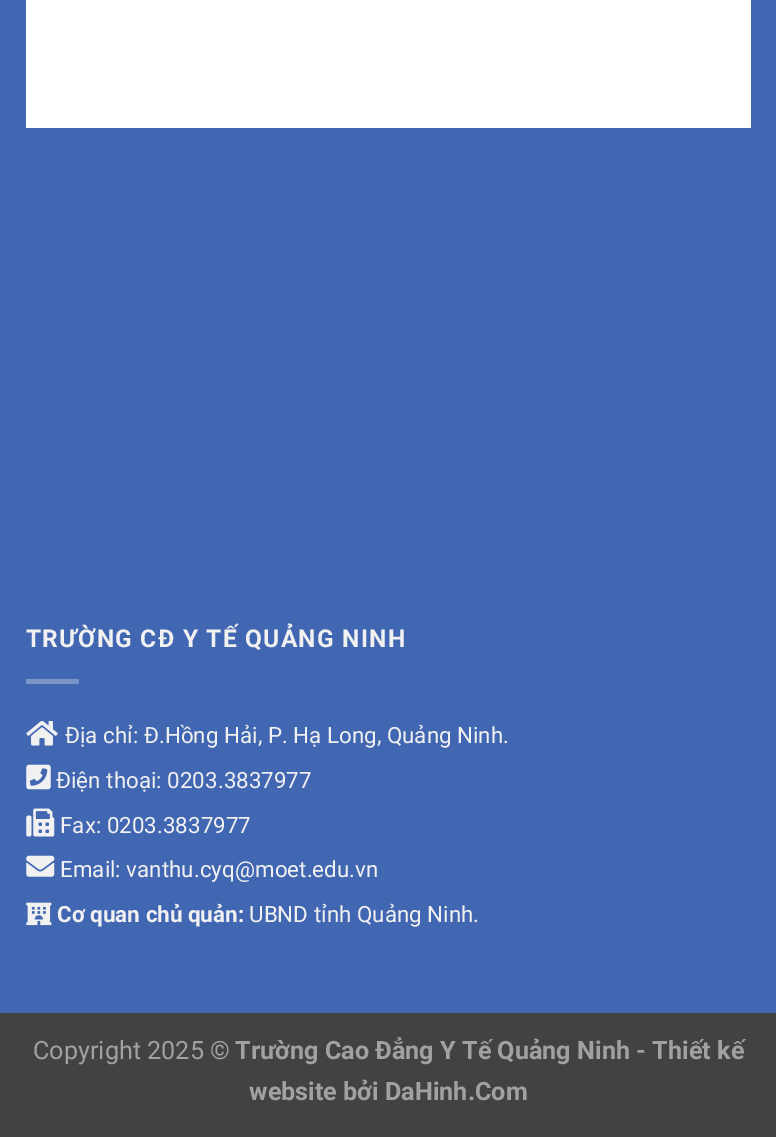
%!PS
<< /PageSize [776 1137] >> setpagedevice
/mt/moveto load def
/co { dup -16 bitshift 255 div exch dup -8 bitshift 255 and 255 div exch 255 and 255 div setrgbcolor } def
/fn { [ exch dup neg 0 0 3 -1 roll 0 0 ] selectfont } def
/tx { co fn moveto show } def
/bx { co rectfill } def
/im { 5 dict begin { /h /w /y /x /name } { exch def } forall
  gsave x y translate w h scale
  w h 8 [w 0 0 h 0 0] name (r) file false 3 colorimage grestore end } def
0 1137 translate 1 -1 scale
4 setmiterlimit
0 0 776 1137 16#4267B2 bx
26 0 725 128 16#FFFFFF bx
26 679 53 5 16#7B95C9 bx
(media/1.raw) 26 721 32 25 im
(media/2.raw) 26 764 25 26 im
(media/3.raw) 26 808 29 29 im
(media/4.raw) 26 855 29 22 im
(media/5.raw) 26 902 26 24 im
0 1013 776 124 16#424242 bx
/Roboto-Bold 24.5 fn
16#F1F1F1 co
26 647 mt 1.25 0 (TRƯỜNG CĐ Y TẾ QUẢNG NINH) ashow
(Địa chỉ: Đ.Hồng Hải, P. Hạ Long, Quảng Ninh.) 65 743 /Roboto-Regular 22.4 16#F1F1F1 tx
(Điện thoại: 0203.3837977) 56 788 /Roboto-Regular 22.4 16#F1F1F1 tx
(Fax: 0203.3837977) 60 833 /Roboto-Regular 22.4 16#F1F1F1 tx
(Email: vanthu.cyq@moet.edu.vn) 60 877 /Roboto-Regular 22.4 16#F1F1F1 tx
(Cơ quan chủ quản:) 57 922 /Roboto-Bold 22.4 16#F1F1F1 tx
(UBND tỉnh Quảng Ninh.) 249 922 /Roboto-Regular 22.4 16#F1F1F1 tx
(Copyright 2025 ©) 33 1059 /Roboto-Regular 25.2 16#A1A1A1 tx
(Trường Cao Đẳng Y Tế Quảng Ninh - Thiết kế) 235 1059 /Roboto-Bold 25.2 16#A1A1A1 tx
(website bởi DaHinh.Com) 249 1100 /Roboto-Bold 25.2 16#A1A1A1 tx
showpage
